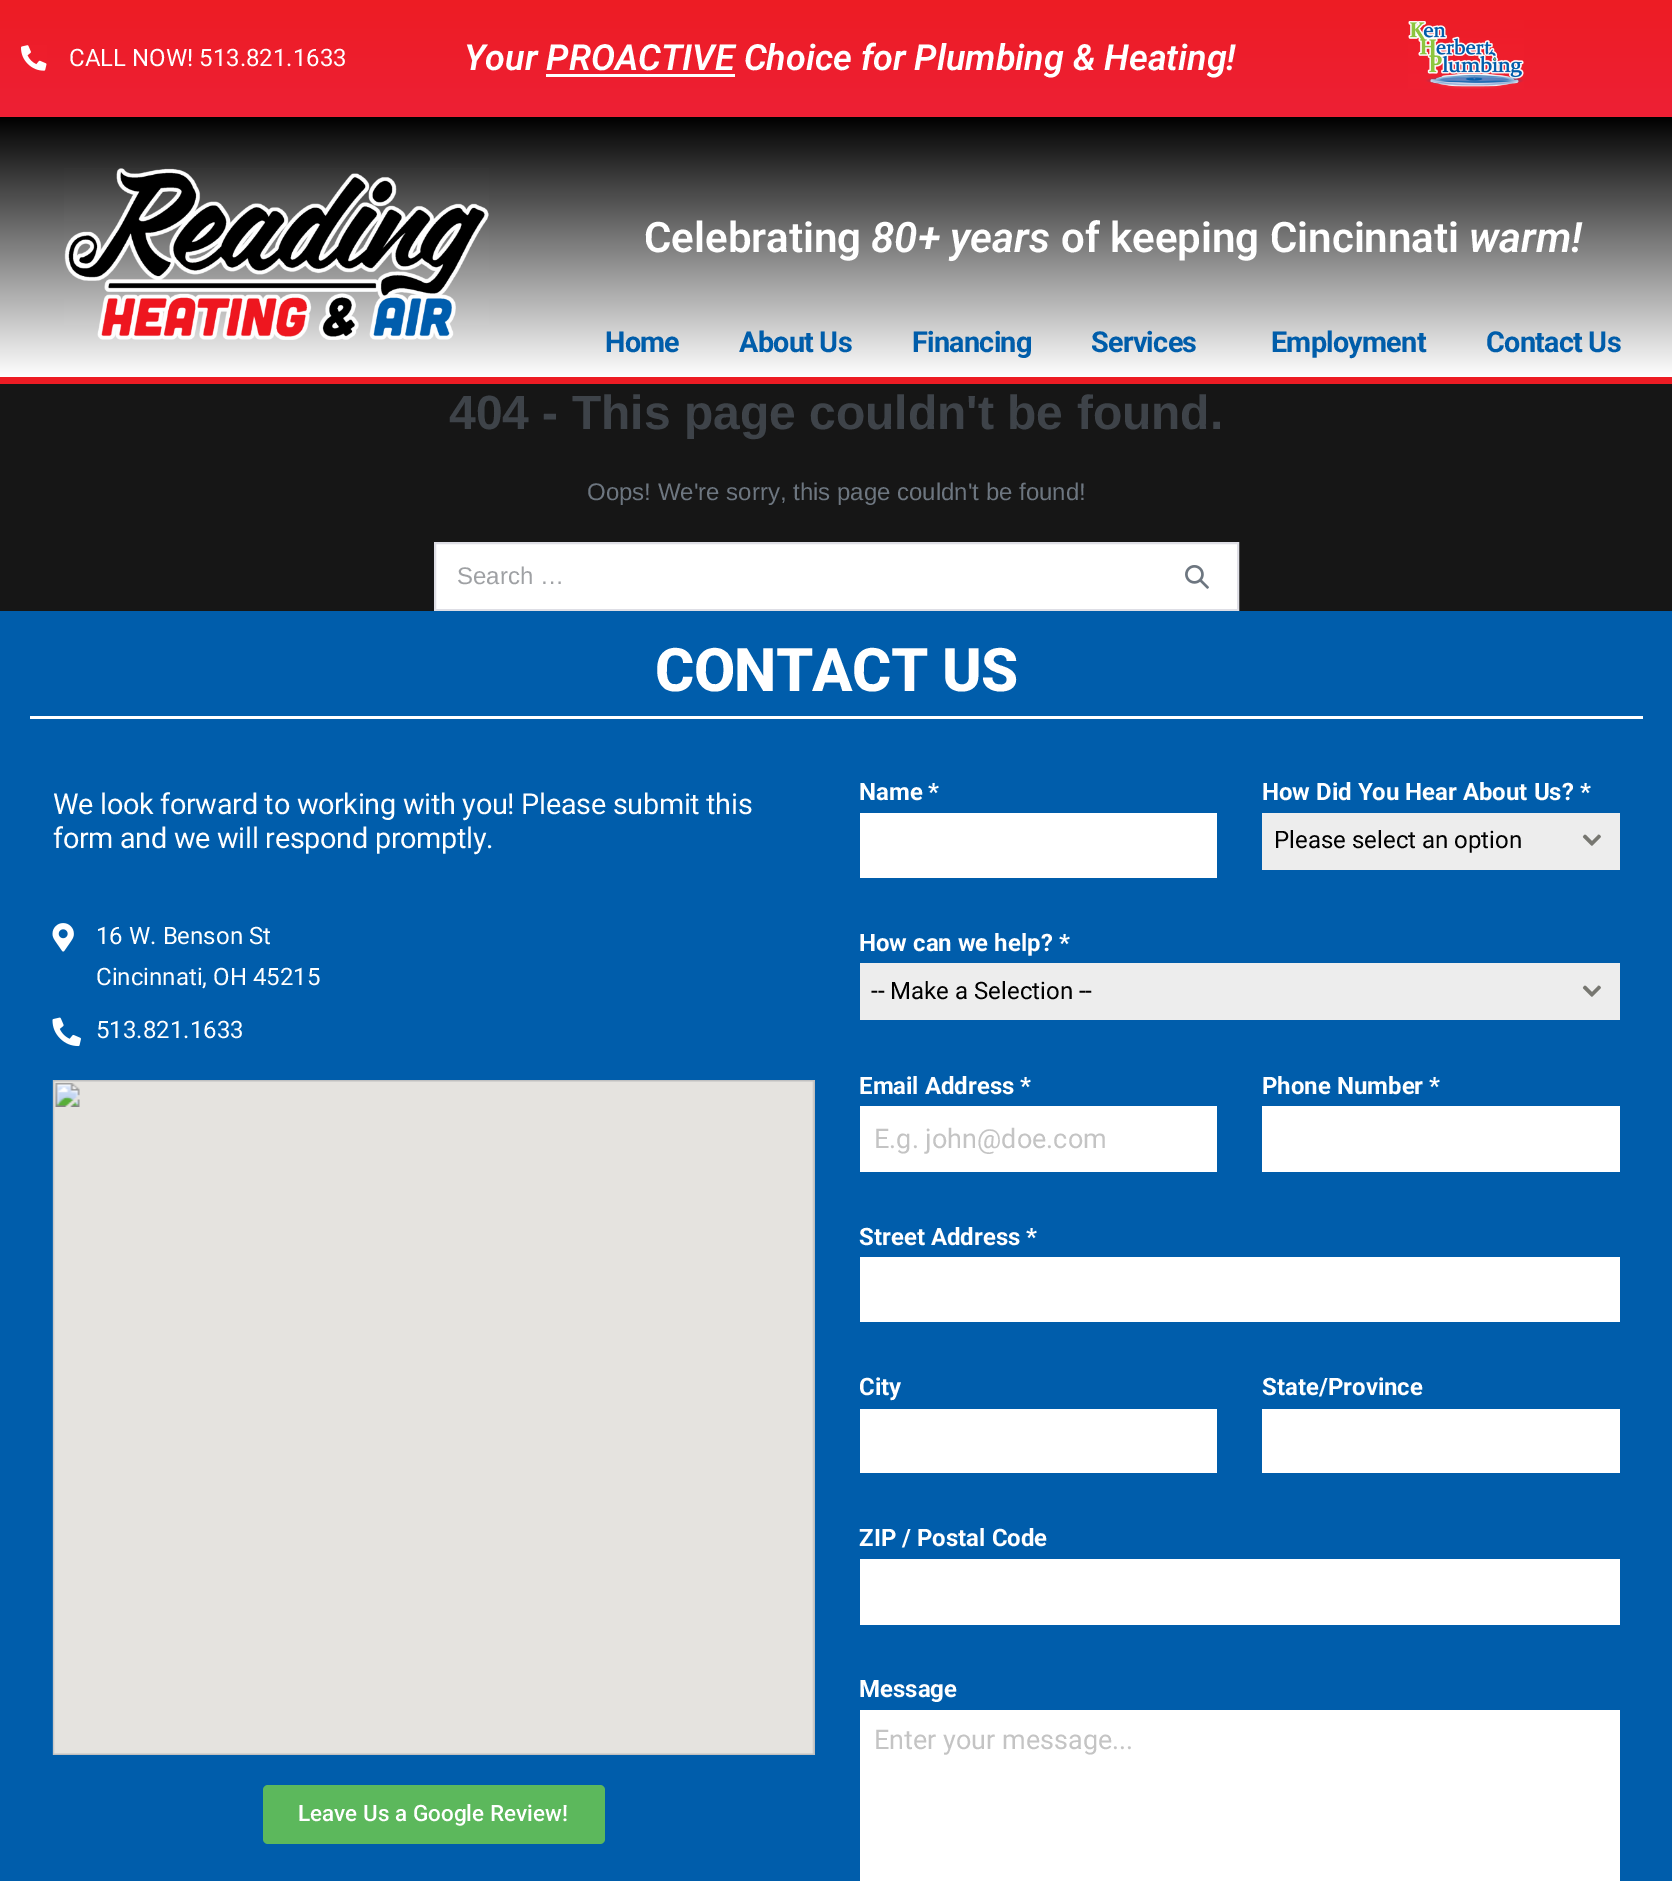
%!PS
<< /PageSize [1672 1881] >> setpagedevice
/mt/moveto load def
/li/lineto load def
/cp/closepath load def
/fl/fill load def
/st/stroke load def
/gs/gsave load def
/gr/grestore load def
/lw/setlinewidth load def
/co { dup -16 bitshift 255 div exch dup -8 bitshift 255 and 255 div exch 255 and 255 div setrgbcolor } def
/fn { [ exch dup neg 0 0 3 -1 roll 0 0 ] selectfont } def
/tx { co fn moveto show } def
/bx { co rectfill } def
/rr { 5 dict begin { /r /h /w /y /x } { exch def } forall
  x r add y moveto x w add y 2 copy h add r arct x w add y h add x 1 index r arct
  x y h add x y r arct x y 2 copy exch w add exch r arct closepath end } def
/im { 5 dict begin { /h /w /y /x /name } { exch def } forall
  gsave x y translate w h scale
  w h 8 [w 0 0 h 0 0] name (r) file false 3 colorimage grestore end } def
0 1881 translate 1 -1 scale
4 setmiterlimit
0 0 1672 1881 16#161616 bx
gs 0 0 mt 1672 0 li 1672 117 li 0 117 li cp clip newpath
<< /ShadingType 2 /ColorSpace /DeviceRGB /Coords [836 0 836 384] /Extend [true true] /Function << /FunctionType 2 /Domain [0 1] /C0 [.929 .11 .141] /C1 [.949 .161 .357] /N 1 >> >> shfill gr
(media/1.raw) 21 45 26 26 im
546 74 189 3 16#FFFFFF bx
(media/2.raw) 1408 20 116 69 im
gs 0 117 mt 1672 117 li 1672 377 li 0 377 li cp clip newpath
<< /ShadingType 2 /ColorSpace /DeviceRGB /Coords [836 117 836 377] /Extend [true true] /Function << /FunctionType 2 /Domain [0 1] /C0 [0 0 0] /C1 [1 1 1] /N 1 >> >> shfill gr
0 377 1672 7 16#ED1C24 bx
(media/3.raw) 64 168 425 172 im
16#FFFFFF co
435 543 mt 1238 543 li 1238 610 li 435 610 li cp gs fl gr
16#DEDEE5 co
2 lw
st
(media/4.raw) 1185 565 24 24 im
0 611 1672 1270 16#005DAB bx
30 716 1613 3 16#FFFFFF bx
(media/5.raw) 52 923 22 29 im
(media/6.raw) 52 1017 29 30 im
(media/7.raw) 52 1080 763 675 im
16#5CB85C co
263 1785 342 59 5 rr fl
860 813 357 65 16#FFFFFF bx
1262 813 358 57 16#EDEDED bx
860 963 760 57 16#EDEDED bx
860 1106 357 66 16#FFFFFF bx
1262 1106 358 66 16#FFFFFF bx
860 1257 760 65 16#FFFFFF bx
860 1409 357 64 16#FFFFFF bx
1262 1409 358 64 16#FFFFFF bx
860 1559 760 66 16#FFFFFF bx
860 1710 760 171 16#FFFFFF bx
(CALL NOW! 513.821.1633) 69 66 /Roboto-Regular 24 16#FFFFFF tx
(Your PROACTIVE Choice for Plumbing & Heating!) 464 70 /Roboto-SemiBoldItalic 36 16#FFFFFF tx
(Celebrating) 644 252 /Roboto-SemiBold 42 16#FFFFFF tx
(80+ years) 871 252 /Roboto-SemiBoldItalic 42 16#FFFFFF tx
(of keeping Cincinnati) 1061 252 /Roboto-SemiBold 42 16#FFFFFF tx
(warm!) 1469 252 /Roboto-SemiBoldItalic 42 16#FFFFFF tx
/Roboto-Bold 28.8 fn
16#005DAA co
605 352 mt -.75 0 (Home) ashow
739 352 mt -.75 0 (About Us) ashow
912 352 mt -.75 0 (Financing) ashow
1091 352 mt -.75 0 (Services) ashow
1271 352 mt -.75 0 (Employment) ashow
1486 352 mt -.75 0 (Contact Us) ashow
(404 - This page couldn't be found.) 449 429 /LiberationSans-Bold 48 16#3E4349 tx
(Oops! We're sorry, this page couldn't be found!) 587 500 /LiberationSans-Regular 24 16#6D7680 tx
(Search …) 457 584 /LiberationSans-Regular 24 16#9FA1A4 tx
/Roboto-ExtraBold 60 fn
16#FFFFFF co
655 691 mt -.75 0 (CONTACT US) ashow
/Roboto-Regular 28.8 fn
53 814 mt -.3 0 (We look forward to working with you! Please submit this) ashow
53 848 mt -.3 0 (form and we will respond promptly.) ashow
(16 W. Benson St) 96 944 /Roboto-Regular 24 16#FFFFFF tx
(Cincinnati, OH 45215) 96 985 /Roboto-Regular 24 16#FFFFFF tx
(513.821.1633) 96 1038 /Roboto-Regular 24 16#FFFFFF tx
(Leave Us a Google Review!) 298 1821 /Roboto-Medium 22.5 16#FFFFFF tx
(Name *) 859 800 /Roboto-Bold 24 16#FFFFFF tx
(How Did You Hear About Us? *) 1262 800 /Roboto-Bold 24 16#FFFFFF tx
(Please select an option) 1274 848 /Roboto-Regular 24 16#000000 tx
(⌄) 1583 848 /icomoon-Regular 18 16#777771 tx
(How can we help? *) 859 951 /Roboto-Bold 24 16#FFFFFF tx
(-- Make a Selection --) 871 999 /Roboto-Regular 24 16#000000 tx
(⌄) 1583 999 /icomoon-Regular 18 16#777771 tx
(Email Address *) 859 1094 /Roboto-Bold 24 16#FFFFFF tx
(E.g. john@doe.com) 874 1148 /Roboto-Regular 27 16#C4C4C4 tx
(Phone Number *) 1262 1094 /Roboto-Bold 24 16#FFFFFF tx
(Street Address *) 859 1245 /Roboto-Bold 24 16#FFFFFF tx
(City) 859 1395 /Roboto-Bold 24 16#FFFFFF tx
(State/Province) 1262 1395 /Roboto-Bold 24 16#FFFFFF tx
(ZIP / Postal Code) 859 1546 /Roboto-Bold 24 16#FFFFFF tx
(Message) 859 1697 /Roboto-Bold 24 16#FFFFFF tx
(Enter your message...) 874 1749 /Roboto-Regular 27 16#C4C4C4 tx
showpage
